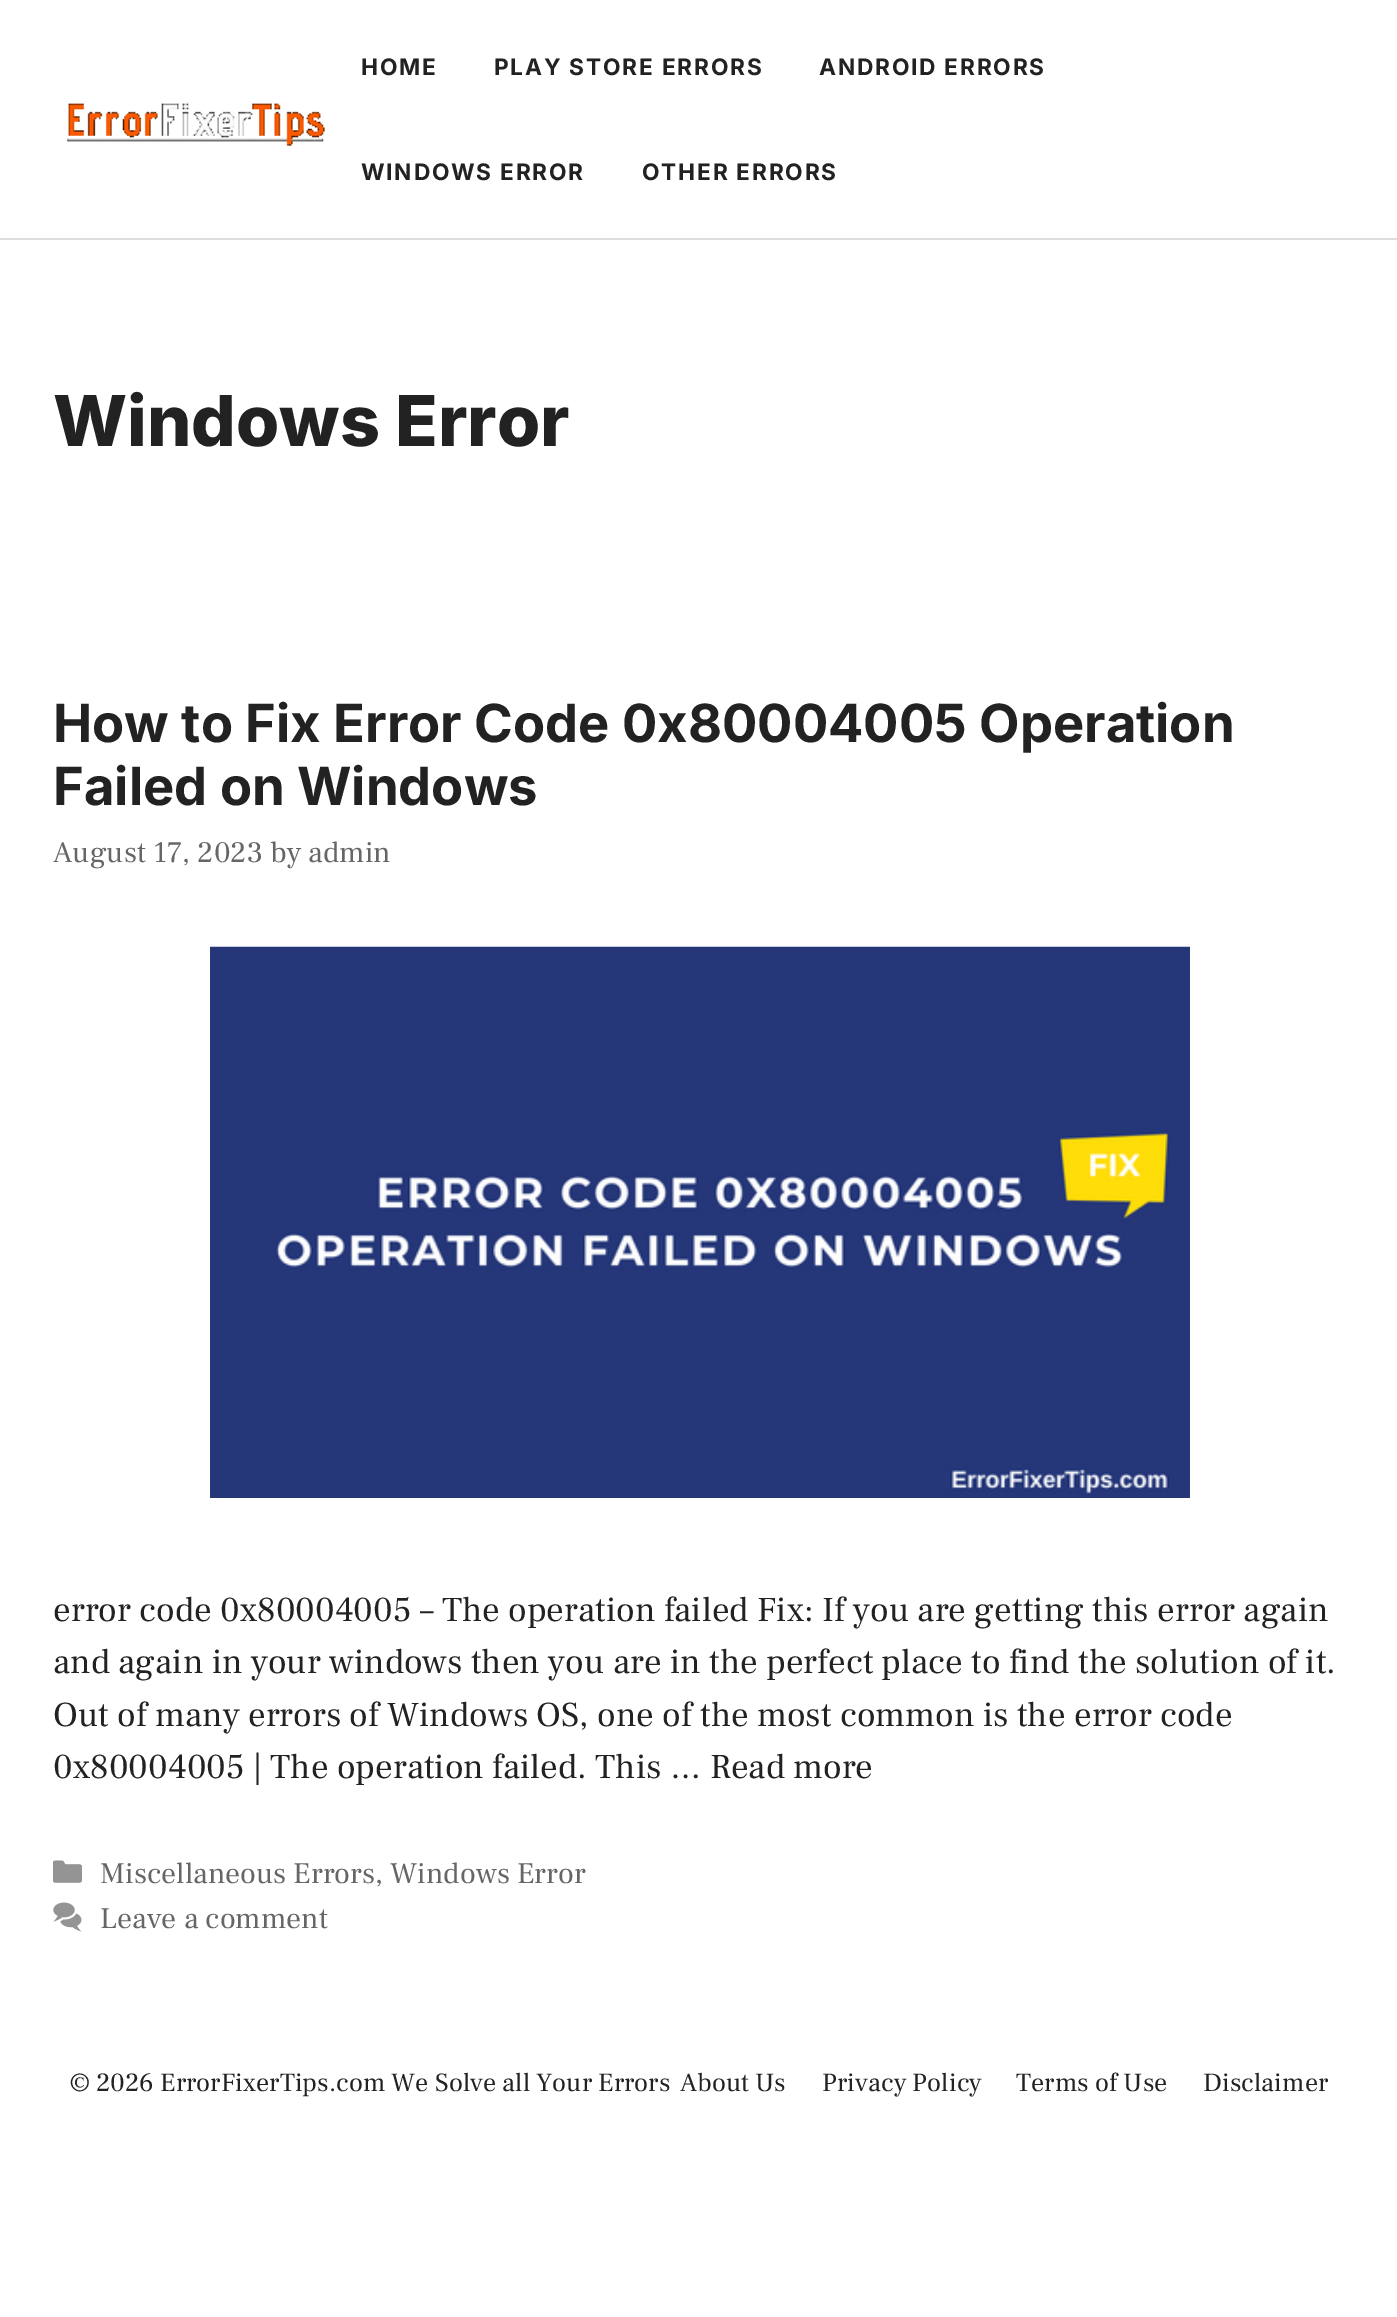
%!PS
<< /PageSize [1397 2317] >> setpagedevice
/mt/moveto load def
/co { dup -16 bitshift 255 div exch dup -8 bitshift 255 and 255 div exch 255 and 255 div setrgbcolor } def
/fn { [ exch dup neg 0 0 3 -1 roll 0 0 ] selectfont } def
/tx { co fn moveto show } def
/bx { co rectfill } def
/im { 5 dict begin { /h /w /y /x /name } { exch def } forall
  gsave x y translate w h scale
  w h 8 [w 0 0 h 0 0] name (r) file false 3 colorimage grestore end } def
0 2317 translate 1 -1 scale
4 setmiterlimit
0 0 1397 2317 16#FFFFFF bx
0 238 1397 2 16#DDDDDD bx
(media/1.raw) 67 103 258 43 im
(media/2.raw) 210 946 980 552 im
(media/3.raw) 53 1860 29 23 im
(media/4.raw) 53 1902 29 30 im
/Inter-Bold 22.75 fn
16#222222 co
361 75 mt 1.75 0 (HOME) ashow
494 75 mt 1.75 0 (PLAY STORE ERRORS) ashow
819 75 mt 1.75 0 (ANDROID ERRORS) ashow
361 180 mt 1.75 0 (WINDOWS ERROR) ashow
642 180 mt 1.75 0 (OTHER ERRORS) ashow
(Windows Error) 53 446 /Inter-ExtraBold 70 16#222222 tx
(How to Fix Error Code 0x80004005 Operation) 53 742 /Inter-Bold 52.5 16#222222 tx
(Failed on Windows) 53 805 /Inter-Bold 52.5 16#222222 tx
(August 17, 2023 by admin) 53 862 /FrankRuhlLibre-Regular 29.75 16#666666 tx
(error code 0x80004005 – The operation failed Fix: If you are getting this error again) 53 1621 /FrankRuhlLibre-Regular 35 16#222222 tx
(and again in your windows then you are in the perfect place to find the solution of it.) 53 1673 /FrankRuhlLibre-Regular 35 16#222222 tx
(Out of many errors of Windows OS, one of the most common is the error code) 53 1726 /FrankRuhlLibre-Regular 35 16#222222 tx
(0x80004005 | The operation failed. This … Read more) 53 1778 /FrankRuhlLibre-Regular 35 16#222222 tx
(Miscellaneous Errors, Windows Error) 100 1883 /FrankRuhlLibre-Regular 29.75 16#666666 tx
(Leave a comment) 100 1928 /FrankRuhlLibre-Regular 29.75 16#666666 tx
(© 2026 ErrorFixerTips.com We Solve all Your Errors) 70 2091 /FrankRuhlLibre-Regular 26.25 16#222222 tx
(About Us) 680 2091 /FrankRuhlLibre-Regular 26.25 16#222222 tx
(Privacy Policy) 822 2091 /FrankRuhlLibre-Regular 26.25 16#222222 tx
(Terms of Use) 1016 2091 /FrankRuhlLibre-Regular 26.25 16#222222 tx
(Disclaimer) 1203 2091 /FrankRuhlLibre-Regular 26.25 16#222222 tx
showpage
